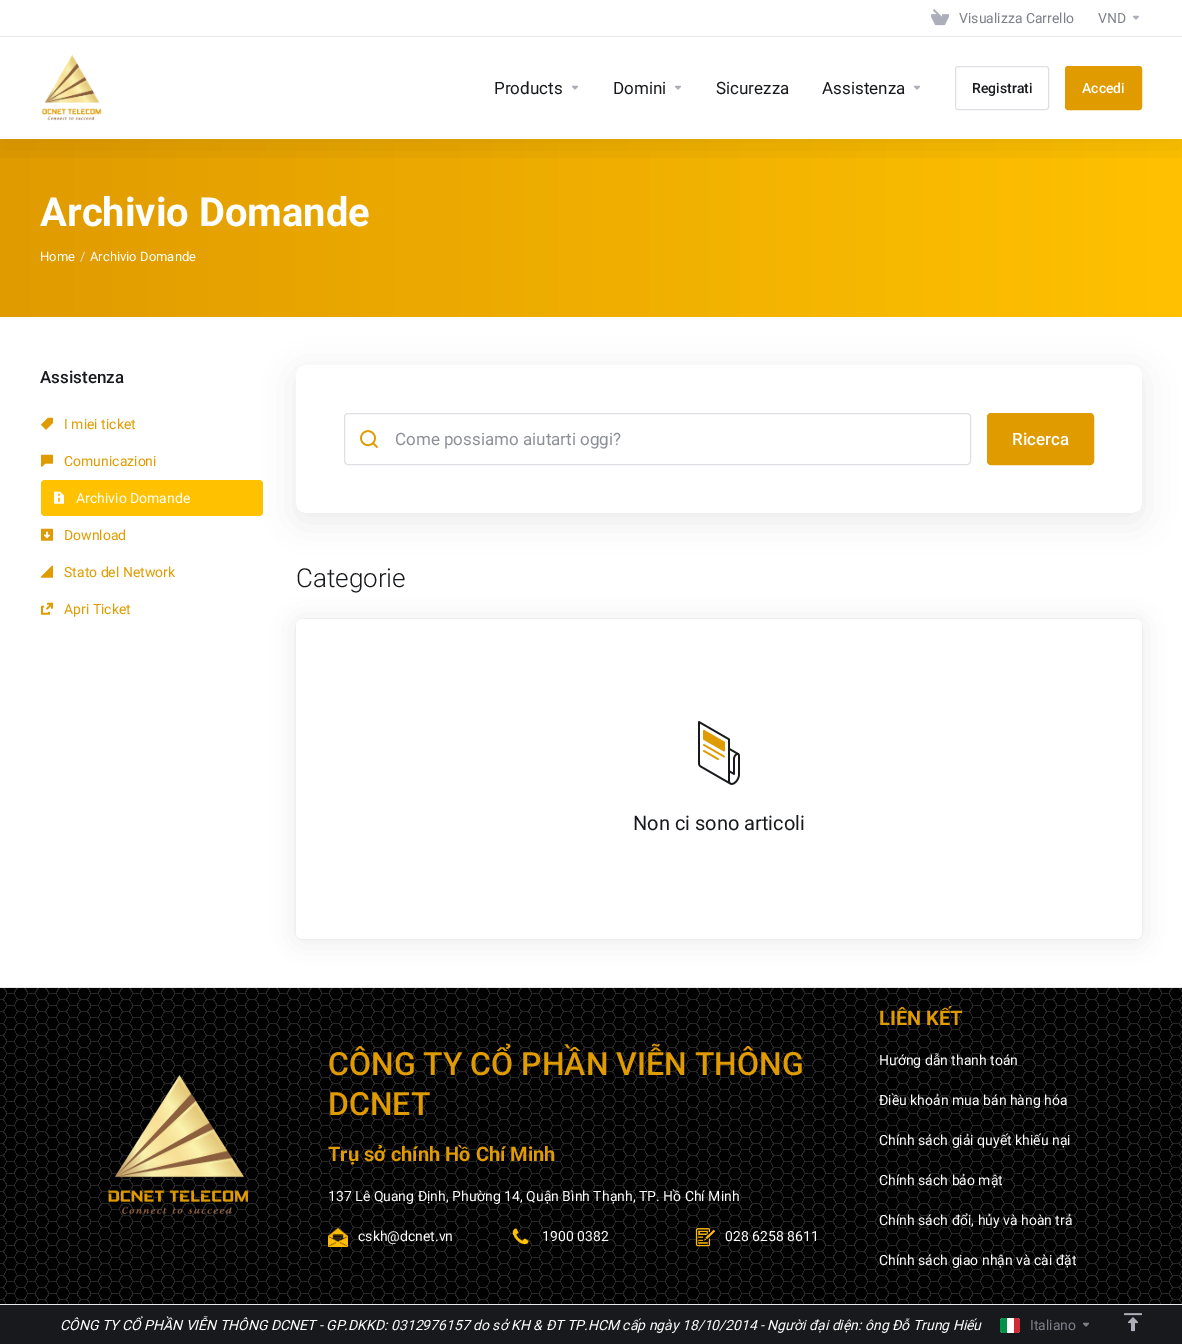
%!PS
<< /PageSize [1182 1344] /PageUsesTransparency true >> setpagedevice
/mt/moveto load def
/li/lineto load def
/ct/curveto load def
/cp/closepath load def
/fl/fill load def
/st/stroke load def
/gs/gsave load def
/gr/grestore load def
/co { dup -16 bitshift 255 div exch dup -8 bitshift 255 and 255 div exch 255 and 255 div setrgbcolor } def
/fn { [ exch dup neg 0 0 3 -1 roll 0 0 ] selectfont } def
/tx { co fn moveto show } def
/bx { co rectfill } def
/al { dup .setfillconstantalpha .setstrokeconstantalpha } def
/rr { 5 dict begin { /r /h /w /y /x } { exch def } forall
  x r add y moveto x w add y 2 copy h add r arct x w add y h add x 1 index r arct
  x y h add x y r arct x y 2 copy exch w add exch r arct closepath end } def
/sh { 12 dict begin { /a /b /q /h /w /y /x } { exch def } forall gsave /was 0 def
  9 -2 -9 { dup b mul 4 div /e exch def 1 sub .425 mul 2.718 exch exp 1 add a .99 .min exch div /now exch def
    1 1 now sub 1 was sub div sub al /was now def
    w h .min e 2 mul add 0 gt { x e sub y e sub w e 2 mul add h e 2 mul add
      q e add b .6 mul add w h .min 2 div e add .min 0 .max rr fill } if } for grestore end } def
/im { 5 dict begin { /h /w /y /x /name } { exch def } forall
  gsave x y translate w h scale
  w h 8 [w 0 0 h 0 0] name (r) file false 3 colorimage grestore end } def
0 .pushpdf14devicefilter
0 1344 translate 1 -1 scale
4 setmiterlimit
0 0 1182 1344 16#FFFFFF bx
gs 0 139 mt 1182 139 li 1182 317 li 0 317 li cp clip newpath
<< /ShadingType 2 /ColorSpace /DeviceRGB /Coords [0 228 1182 228] /Extend [true true] /Function << /FunctionType 2 /Domain [0 1] /C0 [.878 .608 0] /C1 [1 .757 0] /N 1 >> >> shfill gr
gs
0 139 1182 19 rectclip
16#000000 co
0 8 1182 139 0 16 .08 sh
gr
0 36 1182 1 16#E9EAEC bx
(media/1.raw) 931 9 18 17 im
(media/2.raw) 1133 15 6 5 im
(media/3.raw) 41 54 61 67 im
(media/2.raw) 572 85 6 5 im
(media/2.raw) 675 85 6 5 im
(media/2.raw) 914 85 6 5 im
16#DEE0E3 co
955.5 66.5 93 43 2.5 rr st
16#E09B00 co
1065.5 66.5 76 43 2.5 rr gs fl gr
st
(media/4.raw) 41 417 12 13 im
(media/5.raw) 41 454 12 13 im
gs
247 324 mt 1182 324 li 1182 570 li 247 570 li cp 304 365 mt 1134 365 li 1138.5 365 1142 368.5 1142 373 ct 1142 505 li 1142 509.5 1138.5 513 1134 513 ct 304 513 li 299.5 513 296 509.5 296 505 ct 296 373 li 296 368.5 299.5 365 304 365 ct cp eoclip newpath
16#000000 co
296 373 846 148 8 16 .08 sh
gr
16#FFC100 co
41 480 222 36 4 rr fl
(media/6.raw) 54 491 10 13 im
(media/7.raw) 41 528 12 13 im
(media/8.raw) 41 565 12 13 im
(media/9.raw) 41 602 12 13 im
16#DEE0E3 co
344.5 413.5 626 51 3.5 rr st
(media/10.raw) 360 430 18 19 im
16#E09B00 co
987.5 413.5 106 51 3.5 rr gs fl gr
st
16#000000 co
296 621 846 320 6 12 .08 sh
296 619 846 320 6 .5 .1 sh
16#FFFFFF co
296 619 846 320 6 rr fl
(media/11.raw) 698 721 42 64 im
0 988 1182 316 16#000000 bx
(media/12.raw) 0 988 1182 316 im
0 987 1182 1 16#E9EAEC bx
(media/13.raw) 108 1074 140 140 im
(media/14.raw) 328 1228 20 19 im
(media/15.raw) 512 1228 17 17 im
(media/16.raw) 695 1228 20 19 im
0 1305 1182 39 16#17191C bx
0 1304 1182 1 16#E9EAEC bx
16#FFFFFF co
1000 1318 20 15 3 rr fl
16#009246 co
1003 1318 mt 1007 1318 li 1007 1333 li 1003 1333 li 1001.5 1333 1000 1331.5 1000 1330 ct 1000 1321 li 1000 1319.5 1001.5 1318 1003 1318 ct cp fl
16#CE2B37 co
1014 1318 mt 1017 1318 li 1018.5 1318 1020 1319.5 1020 1321 ct 1020 1330 li 1020 1331.5 1018.5 1333 1017 1333 ct 1014 1333 li cp fl
(media/17.raw) 1083 1322 6 5 im
(media/18.raw) 1124 1313 18 19 im
(Visualizza Carrello) 959 23 /Roboto-Regular 14 16#7C8088 tx
(VND) 1098 23 /Roboto-Regular 14 16#7C8088 tx
(Products) 494 94 /Roboto-Regular 17 16#17191C tx
(Domini) 613 94 /Roboto-Regular 17 16#17191C tx
(Sicurezza) 716 94 /Roboto-Regular 17 16#17191C tx
(Assistenza) 822 94 /Roboto-Regular 17 16#17191C tx
(Registrati) 972 93 /Roboto-Medium 14 16#17191C tx
(Accedi) 1082 93 /Roboto-Medium 14 16#FFFFFF tx
(Archivio Domande) 40 226 /Roboto-Bold 40 16#FFFFFF tx
(Home) 40 261 /Roboto-Regular 13 16#FFFFFF tx
(/) 80 261 /Roboto-Regular 13 16#DEE0E3 tx
(Archivio Domande) 90 261 /Roboto-Regular 13 16#FFFFFF tx
(Assistenza) 40 383 /Roboto-Medium 17 16#17191C tx
(I miei ticket) 64 429 /Roboto-Regular 14 16#E09B00 tx
(Comunicazioni) 64 466 /Roboto-Regular 14 16#E09B00 tx
(Archivio Domande) 76 503 /Roboto-Regular 14 16#FFFFFF tx
(Download) 64 540 /Roboto-Regular 14 16#E09B00 tx
(Stato del Network) 64 577 /Roboto-Regular 14 16#E09B00 tx
(Apri Ticket) 64 614 /Roboto-Regular 14 16#E09B00 tx
(Come possiamo aiutarti oggi?) 395 445 /Roboto-Regular 17 16#8C8F96 tx
(Ricerca) 1012 445 /Roboto-Medium 17 16#FFFFFF tx
(Categorie) 296 587 /Roboto-Light 26 16#17191C tx
(Non ci sono articoli) 633 830 /Roboto-Regular 20 16#17191C tx
(CÔNG TY CỔ PHẦN VIỄN THÔNG) 328 1075 /Roboto-Medium 32 16#E09B00 tx
(DCNET) 328 1115 /Roboto-Medium 32 16#E09B00 tx
(Trụ sở chính Hồ Chí Minh) 328 1161 /Roboto-Bold 20 16#E09B00 tx
(137 Lê Quang Định, Phường 14, Quận Bình Thạnh, TP. Hồ Chí Minh) 328 1201 /Roboto-Regular 14 16#FFFFFF tx
(cskh@dcnet.vn) 358 1241 /Roboto-Regular 14 16#FFFFFF tx
(1900 0382) 542 1241 /Roboto-Regular 14 16#FFFFFF tx
(028 6258 8611) 725 1241 /Roboto-Regular 14 16#FFFFFF tx
(LIÊN KẾT) 879 1025 /Roboto-Bold 20 16#E09B00 tx
(Hướng dẫn thanh toán) 879 1065 /Roboto-Regular 14 16#FFFFFF tx
(Điều khoản mua bán hàng hóa) 879 1105 /Roboto-Regular 14 16#FFFFFF tx
(Chính sách giải quyết khiếu nại) 879 1145 /Roboto-Regular 14 16#FFFFFF tx
(Chính sách bảo mật) 879 1185 /Roboto-Regular 14 16#FFFFFF tx
(Chính sách đổi, hủy và hoàn trả) 879 1225 /Roboto-Regular 14 16#FFFFFF tx
(Chính sách giao nhận và cài đặt) 879 1265 /Roboto-Regular 14 16#FFFFFF tx
(CÔNG TY CỔ PHẦN VIỄN THÔNG DCNET - GP.DKKD: 0312976157 do sở KH & ĐT TP.HCM cấp ngày 18/10/2014 - Người đại diện: ông Đỗ Trung Hiếu) 60 1330 /Roboto-Italic 14 16#FFFFFF tx
(Italiano) 1030 1330 /Roboto-Regular 14 16#7C8088 tx
.poppdf14devicefilter showpage
